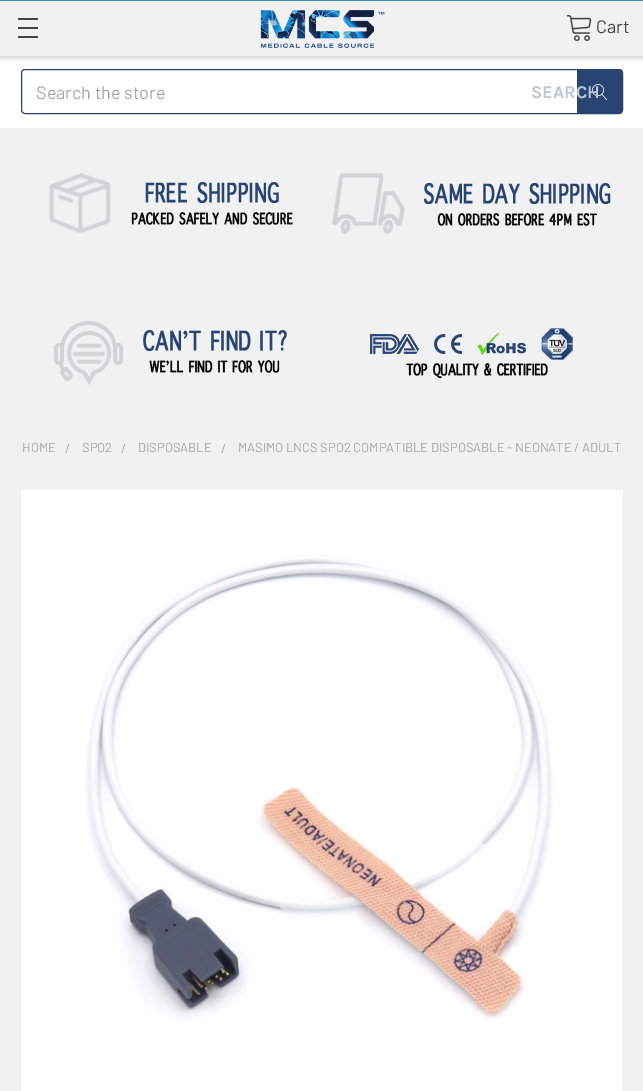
%!PS
<< /PageSize [643 1091] /PageUsesTransparency true >> setpagedevice
/mt/moveto load def
/li/lineto load def
/ct/curveto load def
/cp/closepath load def
/fl/fill load def
/st/stroke load def
/co { dup -16 bitshift 255 div exch dup -8 bitshift 255 and 255 div exch 255 and 255 div setrgbcolor } def
/fn { [ exch dup neg 0 0 3 -1 roll 0 0 ] selectfont } def
/tx { co fn moveto show } def
/bx { co rectfill } def
/al { dup .setfillconstantalpha .setstrokeconstantalpha } def
/rr { 5 dict begin { /r /h /w /y /x } { exch def } forall
  x r add y moveto x w add y 2 copy h add r arct x w add y h add x 1 index r arct
  x y h add x y r arct x y 2 copy exch w add exch r arct closepath end } def
/sh { 12 dict begin { /a /b /q /h /w /y /x } { exch def } forall gsave /was 0 def
  9 -2 -9 { dup b mul 4 div /e exch def 1 sub .425 mul 2.718 exch exp 1 add a .99 .min exch div /now exch def
    1 1 now sub 1 was sub div sub al /was now def
    w h .min e 2 mul add 0 gt { x e sub y e sub w e 2 mul add h e 2 mul add
      q e add b .6 mul add w h .min 2 div e add .min 0 .max rr fill } if } for grestore end } def
/im { 5 dict begin { /h /w /y /x /name } { exch def } forall
  gsave x y translate w h scale
  w h 8 [w 0 0 h 0 0] name (r) file false 3 colorimage grestore end } def
0 .pushpdf14devicefilter
0 1091 translate 1 -1 scale
4 setmiterlimit
0 0 643 1091 16#F1F1F2 bx
0 56 643 72 16#FFFFFF bx
16#000000 co
0 2 643 56 0 2.5 .2 sh
0 1 643 55 16#F1F1F2 bx
0 0 643 1 16#2E8BC0 bx
18 27 20 2 16#454545 bx
18 18 20 2 16#454545 bx
18 36 20 2 16#454545 bx
(media/1.raw) 260 10 125 38 im
(media/2.raw) 566 15 26 26 im
16#274472 co
21.5 69.5 601 44 3.5 rr st
577 69 mt 619 69 li 621 69 623 71 623 73 ct 623 110 li 623 112 621 114 619 114 ct 577 114 li cp fl
(media/3.raw) 592 84 16 17 im
(media/4.raw) 49 173 244 61 im
(media/5.raw) 332 173 279 61 im
(media/6.raw) 54 321 233 64 im
(media/7.raw) 370 328 203 51 im
(media/8.raw) 21 490 602 601 im
(Cart) 596 33 /Barlow-Regular 18 16#454545 tx
(Search the store) 36 99 /Barlow-Regular 18 16#A5A5A5 tx
(SEARCH) 531 98 /Karla-Bold 18 16#BEC7D5 tx
(HOME) 22 452 /Barlow-Regular 13 16#A5A5A5 tx
(/) 65 453 /Barlow-Regular 13 16#A5A5A5 tx
(SPO2) 82 452 /Barlow-Regular 13 16#A5A5A5 tx
(/) 121 453 /Barlow-Regular 13 16#A5A5A5 tx
(DISPOSABLE) 138 452 /Barlow-Regular 13 16#A5A5A5 tx
(/) 221 453 /Barlow-Regular 13 16#A5A5A5 tx
(MASIMO LNCS SPO2 COMPATIBLE DISPOSABLE - NEONATE / ADULT) 238 452 /Barlow-Regular 13 16#A5A5A5 tx
.poppdf14devicefilter showpage
